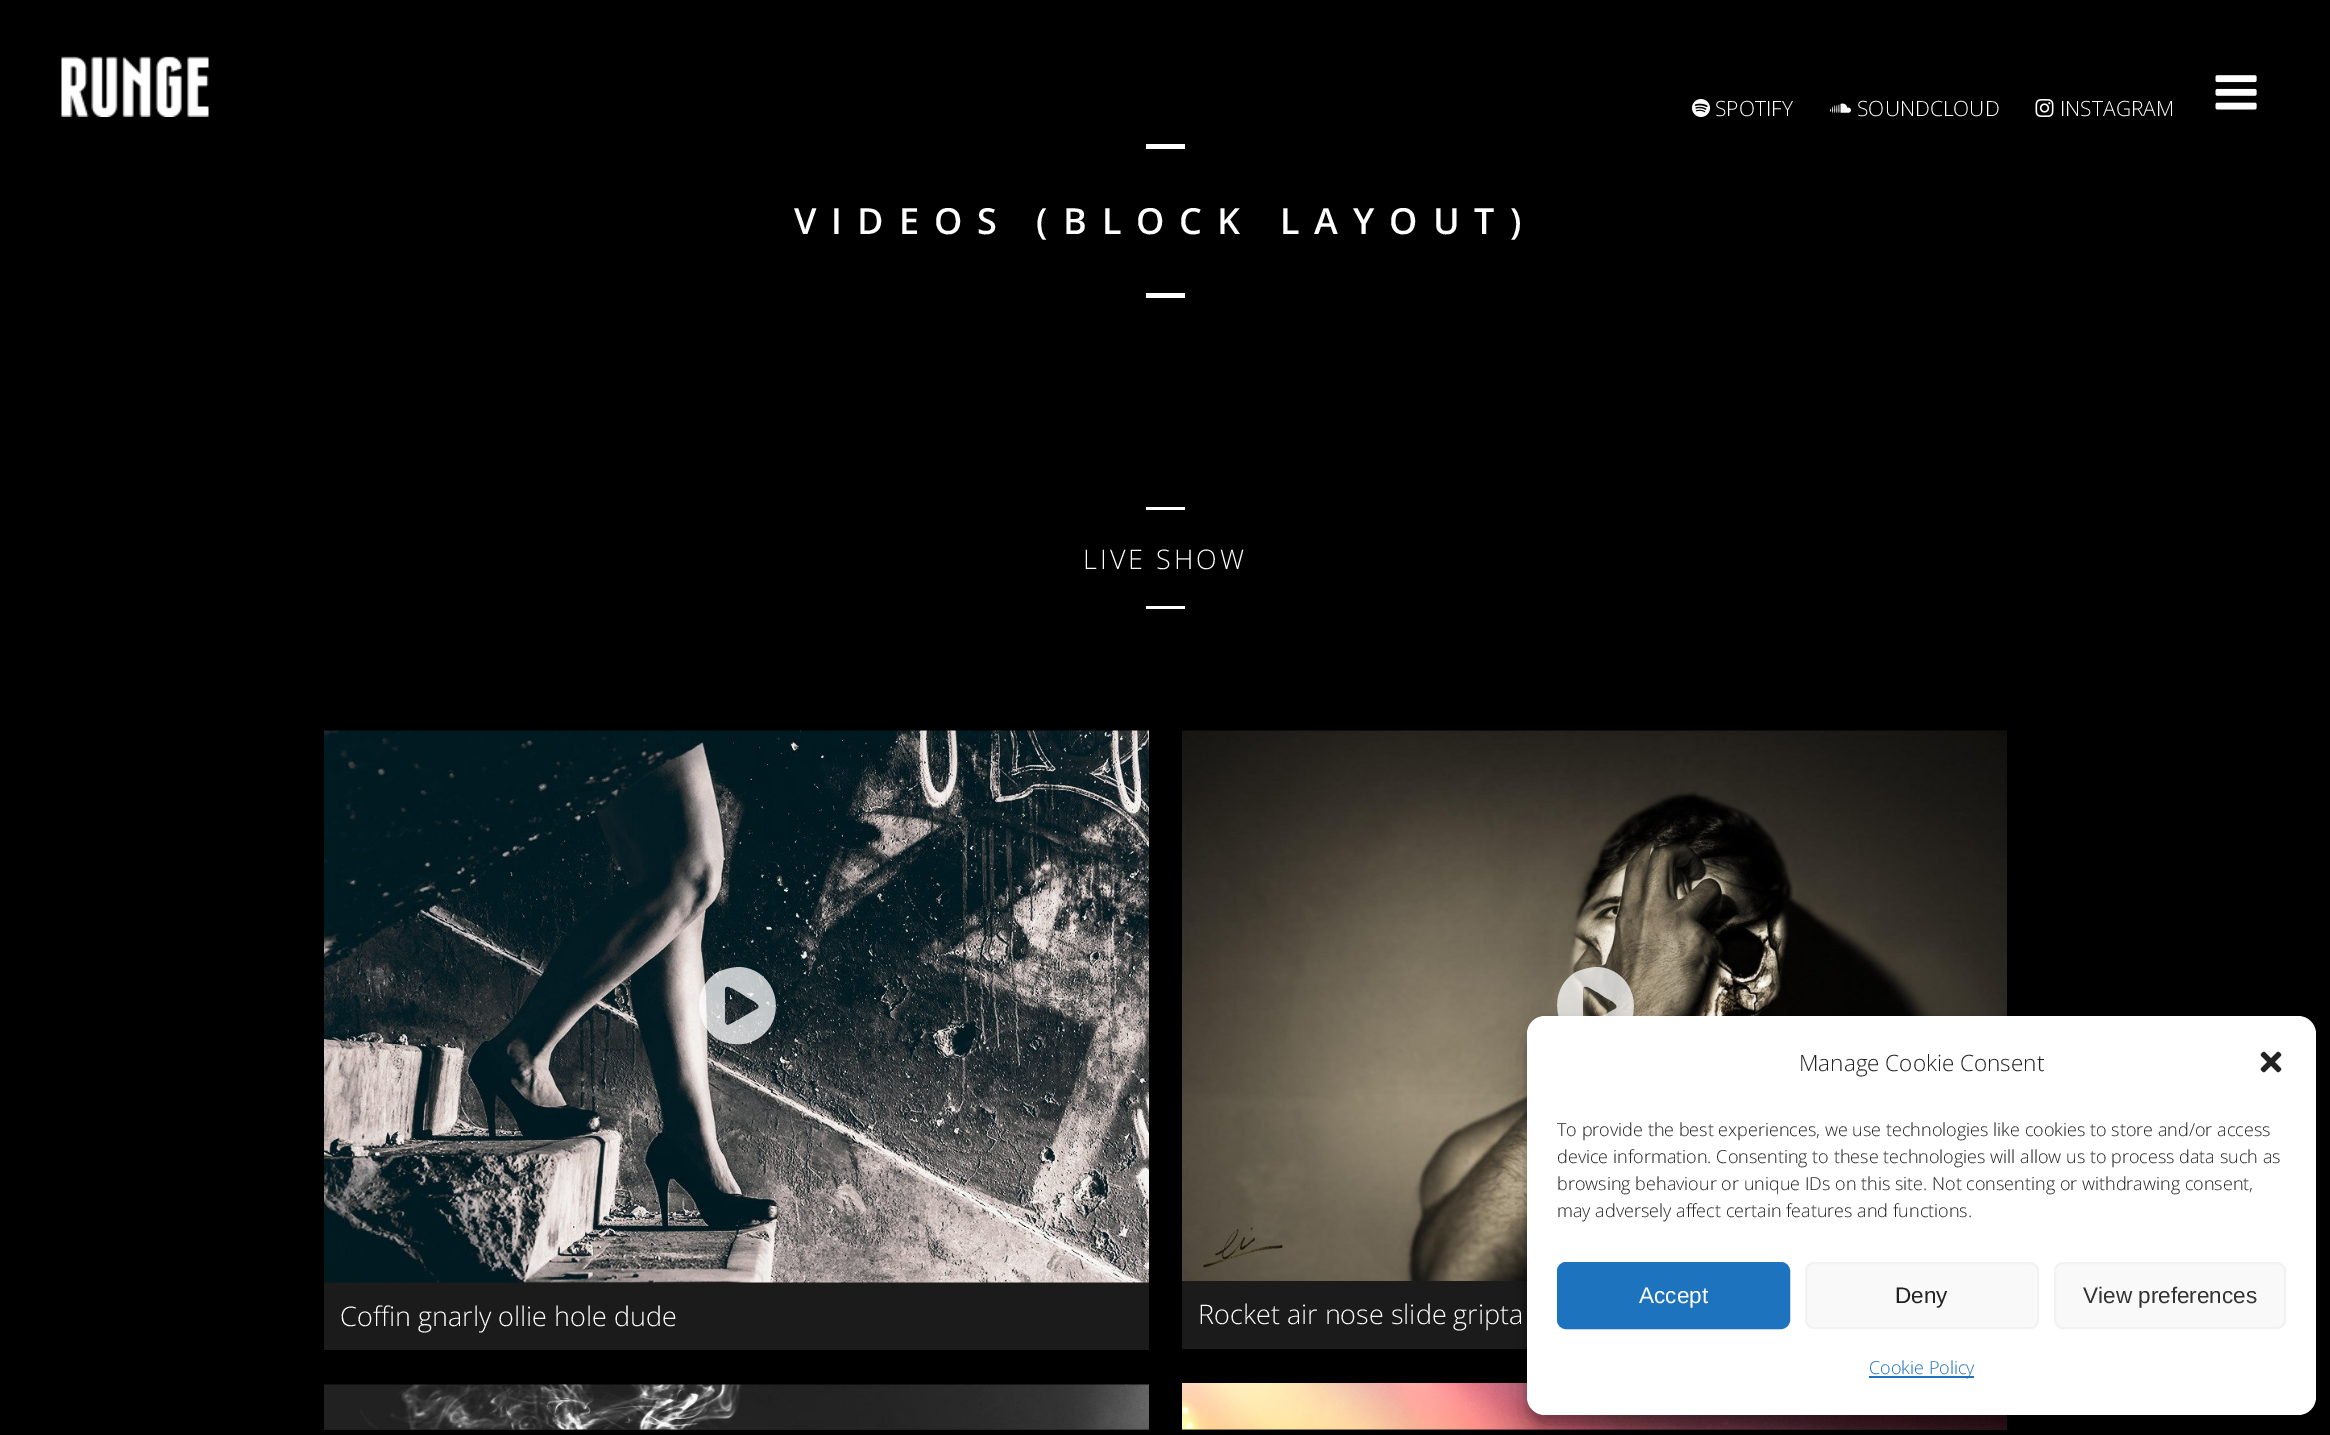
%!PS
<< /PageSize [2330 1435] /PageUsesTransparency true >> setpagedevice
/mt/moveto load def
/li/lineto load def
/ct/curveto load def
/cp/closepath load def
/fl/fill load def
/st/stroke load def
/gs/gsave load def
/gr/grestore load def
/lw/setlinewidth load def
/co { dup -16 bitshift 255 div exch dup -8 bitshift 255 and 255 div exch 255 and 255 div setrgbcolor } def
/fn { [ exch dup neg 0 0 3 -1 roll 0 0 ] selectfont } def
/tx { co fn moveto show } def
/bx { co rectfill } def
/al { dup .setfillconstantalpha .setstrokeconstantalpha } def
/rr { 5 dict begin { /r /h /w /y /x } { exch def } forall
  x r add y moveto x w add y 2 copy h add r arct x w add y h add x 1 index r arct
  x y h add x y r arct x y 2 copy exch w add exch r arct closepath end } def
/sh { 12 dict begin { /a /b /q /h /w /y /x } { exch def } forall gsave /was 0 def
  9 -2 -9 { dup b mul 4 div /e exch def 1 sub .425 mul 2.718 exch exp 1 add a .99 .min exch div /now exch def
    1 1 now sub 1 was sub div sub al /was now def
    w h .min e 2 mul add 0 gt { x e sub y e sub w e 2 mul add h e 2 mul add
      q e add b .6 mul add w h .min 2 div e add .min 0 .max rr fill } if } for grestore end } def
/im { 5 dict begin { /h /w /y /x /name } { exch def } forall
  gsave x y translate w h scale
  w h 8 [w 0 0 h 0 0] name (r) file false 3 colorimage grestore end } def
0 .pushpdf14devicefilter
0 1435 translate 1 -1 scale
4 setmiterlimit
0 0 2330 1435 16#000000 bx
(media/1.raw) 61 56 148 61 im
(media/2.raw) 1692 99 18 18 im
(media/3.raw) 1830 103 21 10 im
(media/4.raw) 2035 99 19 18 im
(media/5.raw) 2215 75 42 35 im
1146 144 39 5 16#FFFFFF bx
1146 293 39 5 16#FFFFFF bx
1146 507 39 3 16#FFFFFF bx
1146 606 39 3 16#FFFFFF bx
324 1282 825 68 16#1B1B1B bx
(media/6.raw) 324 730 825 553 im
0.75 al
16#FFFFFF co
718 972 mt 725 969 733 967 740 967 ct 778 970 789 1020 757 1039 ct 750 1043 743 1045 735 1044 ct 697 1042 686 991 718 972 ct cp 757 1009 mt 764 1005 748 998 748 998 ct 739 992 li 736 991 729 985 726 987 ct 724 988 725 993 725 995 ct 725 1017 li 725 1019 724 1025 728 1025 ct 730 1025 753 1011 757 1009 ct cp fl
1 al
1182 1281 345 68 16#1B1B1B bx
(media/7.raw) 1182 730 825 551 im
0.75 al
16#FFFFFF co
1576 972 mt 1583 969 1591 967 1598 967 ct 1636 970 1647 1020 1615 1039 ct 1608 1043 1601 1045 1593 1044 ct 1555 1042 1544 991 1576 972 ct cp 1615 1009 mt 1622 1005 1606 998 1606 998 ct 1597 992 li 1594 991 1587 985 1584 987 ct 1582 988 1583 993 1583 995 ct 1583 1017 li 1583 1019 1582 1025 1586 1025 ct 1588 1025 1611 1011 1615 1009 ct cp fl
1 al
324 1429 825 1 16#1B1B1B bx
(media/8.raw) 324 1384 825 46 im
1182 1429 825 1 16#1B1B1B bx
(media/9.raw) 1182 1383 825 47 im
16#000000 co
1527 1025 789 399 18 4.5 .23 sh
1527 1031 789 399 18 15 .19 sh
16#FFFFFF co
1527 1016 789 399 18 rr fl
(media/10.raw) 2260 1051 22 22 im
16#1E73BE co
1558 1263 231 65 8 rr gs fl gr
2 lw
st
16#F9F9F9 co
1806 1263 232 65 8 rr gs fl gr
16#F2F2F2 co
st
16#F9F9F9 co
2055 1263 230 65 8 rr gs fl gr
16#F2F2F2 co
st
1869 1376 105 2 16#1E73BE bx
(SPOTIFY) 1715 116 /OpenSans-Light 21 16#FFFFFF tx
(SOUNDCLOUD) 1857 116 /OpenSans-Light 21 16#FFFFFF tx
(INSTAGRAM) 2060 116 /OpenSans-Light 21 16#FFFFFF tx
/OpenSans-SemiBold 36 fn
794 234 mt 15 0 (VIDEOS \(BLOCK LAYOUT\)) ashow
/OpenSans-Light 27 fn
1083 569 mt 3 0 (LIVE SHOW) ashow
(Coffin gnarly ollie hole dude) 340 1326 /OpenSans-Light 27 16#FFFFFF tx
(Rocket air nose slide gripta) 1198 1324 /OpenSans-Light 27 16#FFFFFF tx
(Manage Cookie Consent) 1799 1071 /OpenSans-Light 22.5 16#222222 tx
(To provide the best experiences, we use technologies like cookies to store and/or access) 1557 1136 /OpenSans-Light 18 16#222222 tx
(device information. Consenting to these technologies will allow us to process data such as) 1557 1163 /OpenSans-Light 18 16#222222 tx
(browsing behaviour or unique IDs on this site. Not consenting or withdrawing consent,) 1557 1190 /OpenSans-Light 18 16#222222 tx
(may adversely affect certain features and functions.) 1557 1217 /OpenSans-Light 18 16#222222 tx
(Accept) 1639 1303 /LiberationSans-Regular 22.5 16#FFFFFF tx
(Deny) 1895 1303 /LiberationSans-Regular 22.5 16#222222 tx
(View preferences) 2083 1303 /LiberationSans-Regular 22.5 16#333333 tx
(Cookie Policy) 1869 1374 /OpenSans-Light 18 16#1E73BE tx
.poppdf14devicefilter showpage
